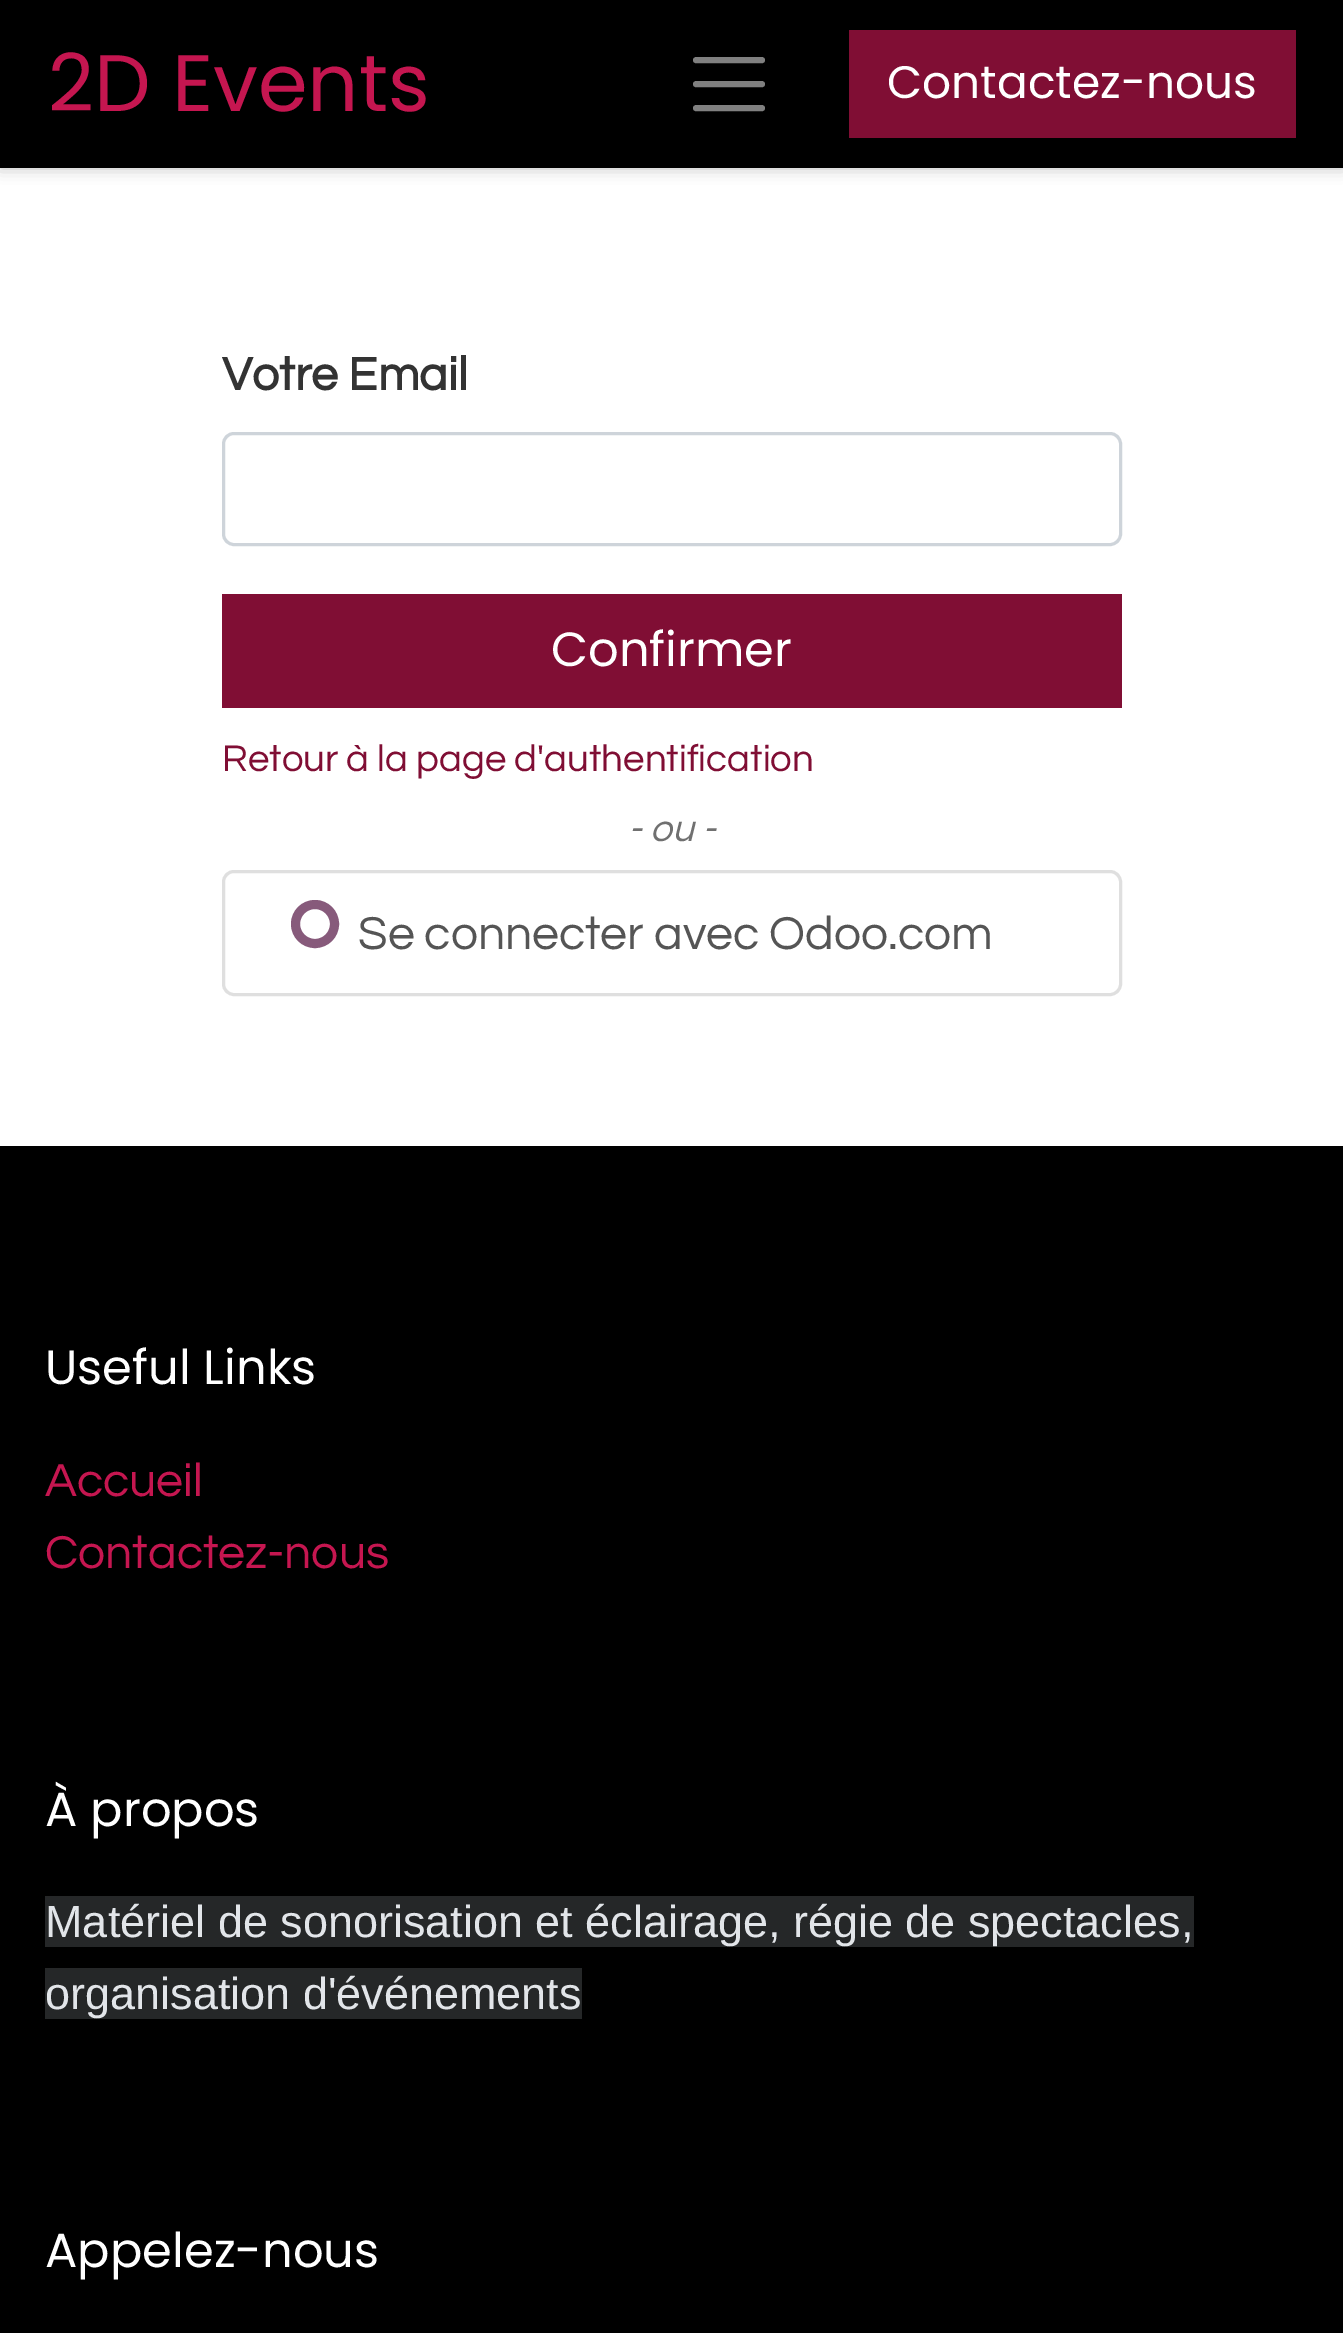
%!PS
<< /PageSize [1343 2333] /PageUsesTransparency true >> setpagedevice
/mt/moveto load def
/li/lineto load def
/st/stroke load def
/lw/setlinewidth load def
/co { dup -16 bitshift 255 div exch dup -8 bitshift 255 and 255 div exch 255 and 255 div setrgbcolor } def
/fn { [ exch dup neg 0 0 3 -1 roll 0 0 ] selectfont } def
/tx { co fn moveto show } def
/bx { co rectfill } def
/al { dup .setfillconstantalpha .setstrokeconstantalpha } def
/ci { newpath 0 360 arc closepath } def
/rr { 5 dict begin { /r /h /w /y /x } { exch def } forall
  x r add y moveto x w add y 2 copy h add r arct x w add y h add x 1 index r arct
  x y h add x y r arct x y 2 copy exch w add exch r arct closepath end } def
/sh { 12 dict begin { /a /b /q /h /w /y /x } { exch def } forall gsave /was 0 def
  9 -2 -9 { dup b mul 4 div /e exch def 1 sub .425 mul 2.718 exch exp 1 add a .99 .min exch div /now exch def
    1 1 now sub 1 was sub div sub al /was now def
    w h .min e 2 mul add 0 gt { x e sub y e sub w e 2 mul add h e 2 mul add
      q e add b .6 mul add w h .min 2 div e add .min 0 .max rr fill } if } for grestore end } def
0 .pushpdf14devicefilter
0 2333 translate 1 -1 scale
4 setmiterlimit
0 0 1343 2333 16#FFFFFF bx
16#000000 co
0 0 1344 168 0 7.5 .25 sh
0 0 1343 168 16#000000 bx
16#808080 co
6 lw
1 setlinecap
696 60 mt 762 60 li 696 84 mt 762 84 li 696 108 mt 762 108 li st
849 30 447 108 16#800E34 bx
16#CED4DA co
3 lw
0 setlinecap
223.5 433.5 897 111 10.5 rr st
222 594 900 114 16#800E34 bx
16#DFDFDF co
223.5 871.5 897 123 10.5 rr st
16#875A7B co
9 lw
315 924 19.5 ci st
0 1146 1343 1187 16#000000 bx
45 1896 1149 51 16#252728 bx
45 1968 537 51 16#252728 bx
(2D Events) 48 111 /Poppins-Regular 80 16#C51650 tx
(Contactez-nous) 887 98 /Poppins-Regular 45.5 16#FFFFFF tx
(Votre Email) 222 390 /Questrial-Bold 48 16#333333 tx
(Confirmer) 551 666 /Poppins-Regular 48 16#FFFFFF tx
(Retour à la page d'authentification) 222 771 /Questrial-Regular 38.4 16#800E34 tx
(- ou -) 628 841 /Questrial-Italic 38.4 16#707070 tx
(Se connecter avec Odoo.com) 358 949 /Questrial-Regular 48 16#555555 tx
(Useful Links) 45 1384 /Poppins-Regular 48 16#FFFFFF tx
(Accueil) 45 1496 /Questrial-Regular 48 16#C51650 tx
(Contactez-nous) 45 1568 /Questrial-Regular 48 16#C51650 tx
(À propos) 45 1826 /Poppins-Regular 48 16#FFFFFF tx
(Matériel de sonorisation et éclairage, régie de spectacles,) 45 1937 /LiberationSans-Regular 45 16#E2E5E9 tx
(organisation d'événements) 45 2009 /LiberationSans-Regular 45 16#E2E5E9 tx
(Appelez-nous) 45 2267 /Poppins-Regular 48 16#FFFFFF tx
.poppdf14devicefilter showpage
